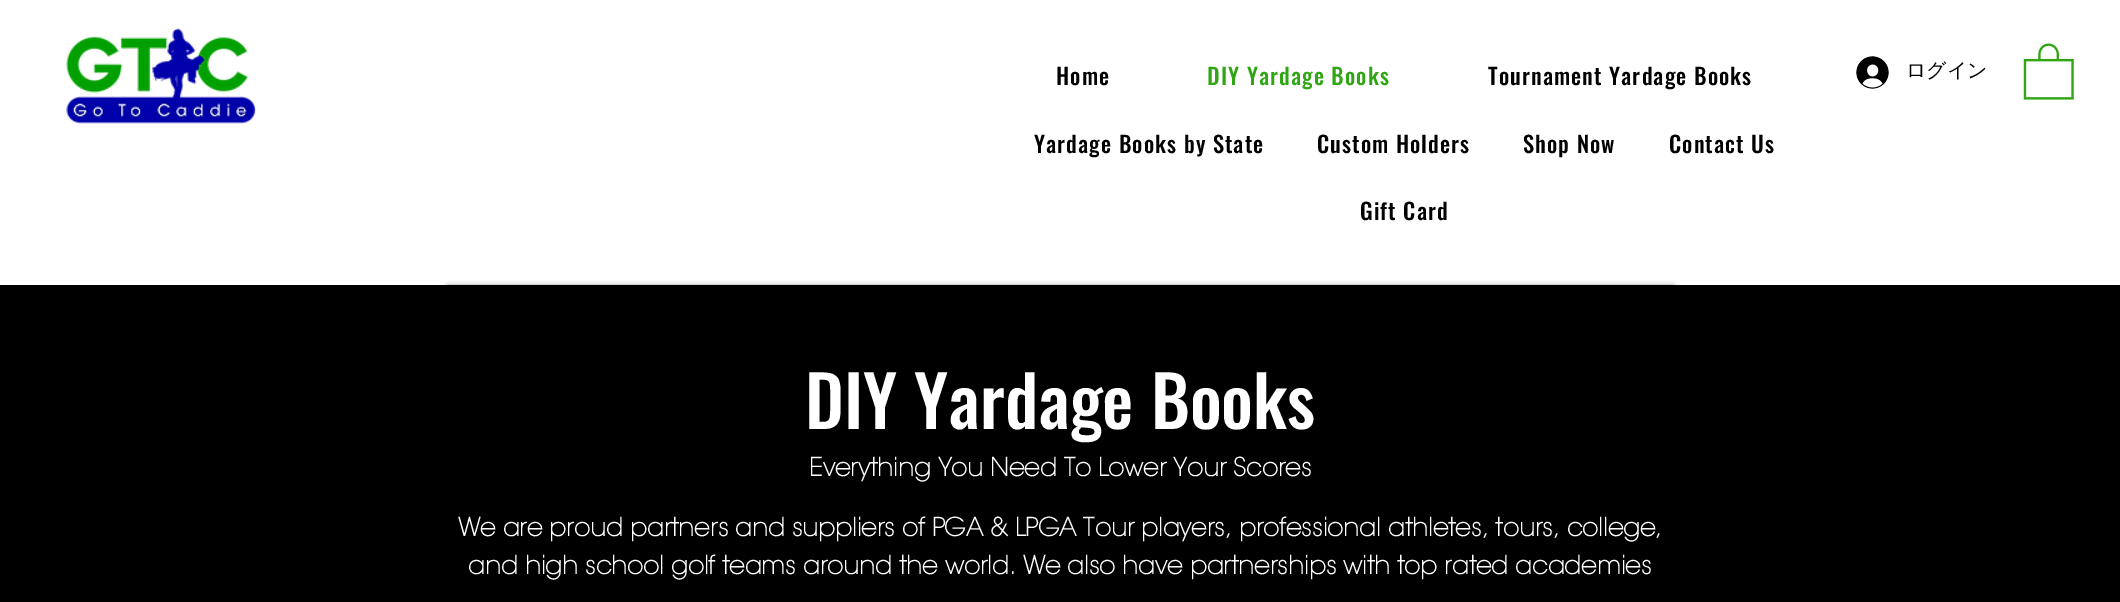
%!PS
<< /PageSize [2120 602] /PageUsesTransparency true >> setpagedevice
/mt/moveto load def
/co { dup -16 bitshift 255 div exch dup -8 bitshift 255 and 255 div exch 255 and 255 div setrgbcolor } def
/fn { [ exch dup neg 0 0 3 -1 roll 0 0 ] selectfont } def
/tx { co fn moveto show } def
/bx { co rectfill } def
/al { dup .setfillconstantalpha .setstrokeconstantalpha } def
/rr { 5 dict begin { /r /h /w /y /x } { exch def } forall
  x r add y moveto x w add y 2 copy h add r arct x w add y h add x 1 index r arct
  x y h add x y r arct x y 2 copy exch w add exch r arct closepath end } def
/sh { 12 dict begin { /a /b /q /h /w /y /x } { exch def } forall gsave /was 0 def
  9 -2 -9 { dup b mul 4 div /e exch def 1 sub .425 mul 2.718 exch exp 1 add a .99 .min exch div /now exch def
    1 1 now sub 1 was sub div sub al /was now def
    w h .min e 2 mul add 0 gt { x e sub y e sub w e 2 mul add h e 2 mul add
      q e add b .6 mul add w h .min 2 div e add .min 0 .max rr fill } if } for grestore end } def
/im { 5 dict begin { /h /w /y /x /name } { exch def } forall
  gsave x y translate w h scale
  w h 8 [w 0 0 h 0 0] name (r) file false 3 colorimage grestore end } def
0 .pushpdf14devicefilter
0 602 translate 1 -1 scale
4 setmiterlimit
0 0 2120 602 16#FFFFFF bx
(media/1.raw) 66 28 190 96 im
(media/2.raw) 1856 56 33 33 im
(media/3.raw) 2023 43 51 57 im
16#000000 co
448 286 1225 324 0 2.5 .6 sh
0 285 2120 317 16#000000 bx
/Oswald-Medium 22.5 fn
1056 85 mt 1.1 0 (Home) ashow
16#31A614 co
1207 85 mt 1.1 0 (DIY Yardage Books) ashow
16#000000 co
1488 85 mt 1.1 0 (Tournament Yardage Books) ashow
1034 153 mt 1.1 0 (Yardage Books by State) ashow
1317 153 mt 1.1 0 (Custom Holders) ashow
1523 153 mt 1.1 0 (Shop Now) ashow
1669 153 mt 1.1 0 (Contact Us) ashow
1360 220 mt 1.1 0 (Gift Card) ashow
(ログイン) 1906 77 /WenQuanYiZenHei-Medium 20 16#000000 tx
(DIY Yardage Books) 805 429 /Oswald-Medium 70 16#FFFFFF tx
(Everything You Need To Lower Your Scores) 809 476 /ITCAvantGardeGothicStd-Bold 25 16#FFFFFF tx
(We are proud partners and suppliers of PGA & LPGA Tour players, professional athletes, tours, college,) 458 536 /ITCAvantGardeGothicStd-Bold 25 16#FFFFFF tx
(and high school golf teams around the world. We also have partnerships with top rated academies) 468 574 /ITCAvantGardeGothicStd-Bold 25 16#FFFFFF tx
.poppdf14devicefilter showpage
